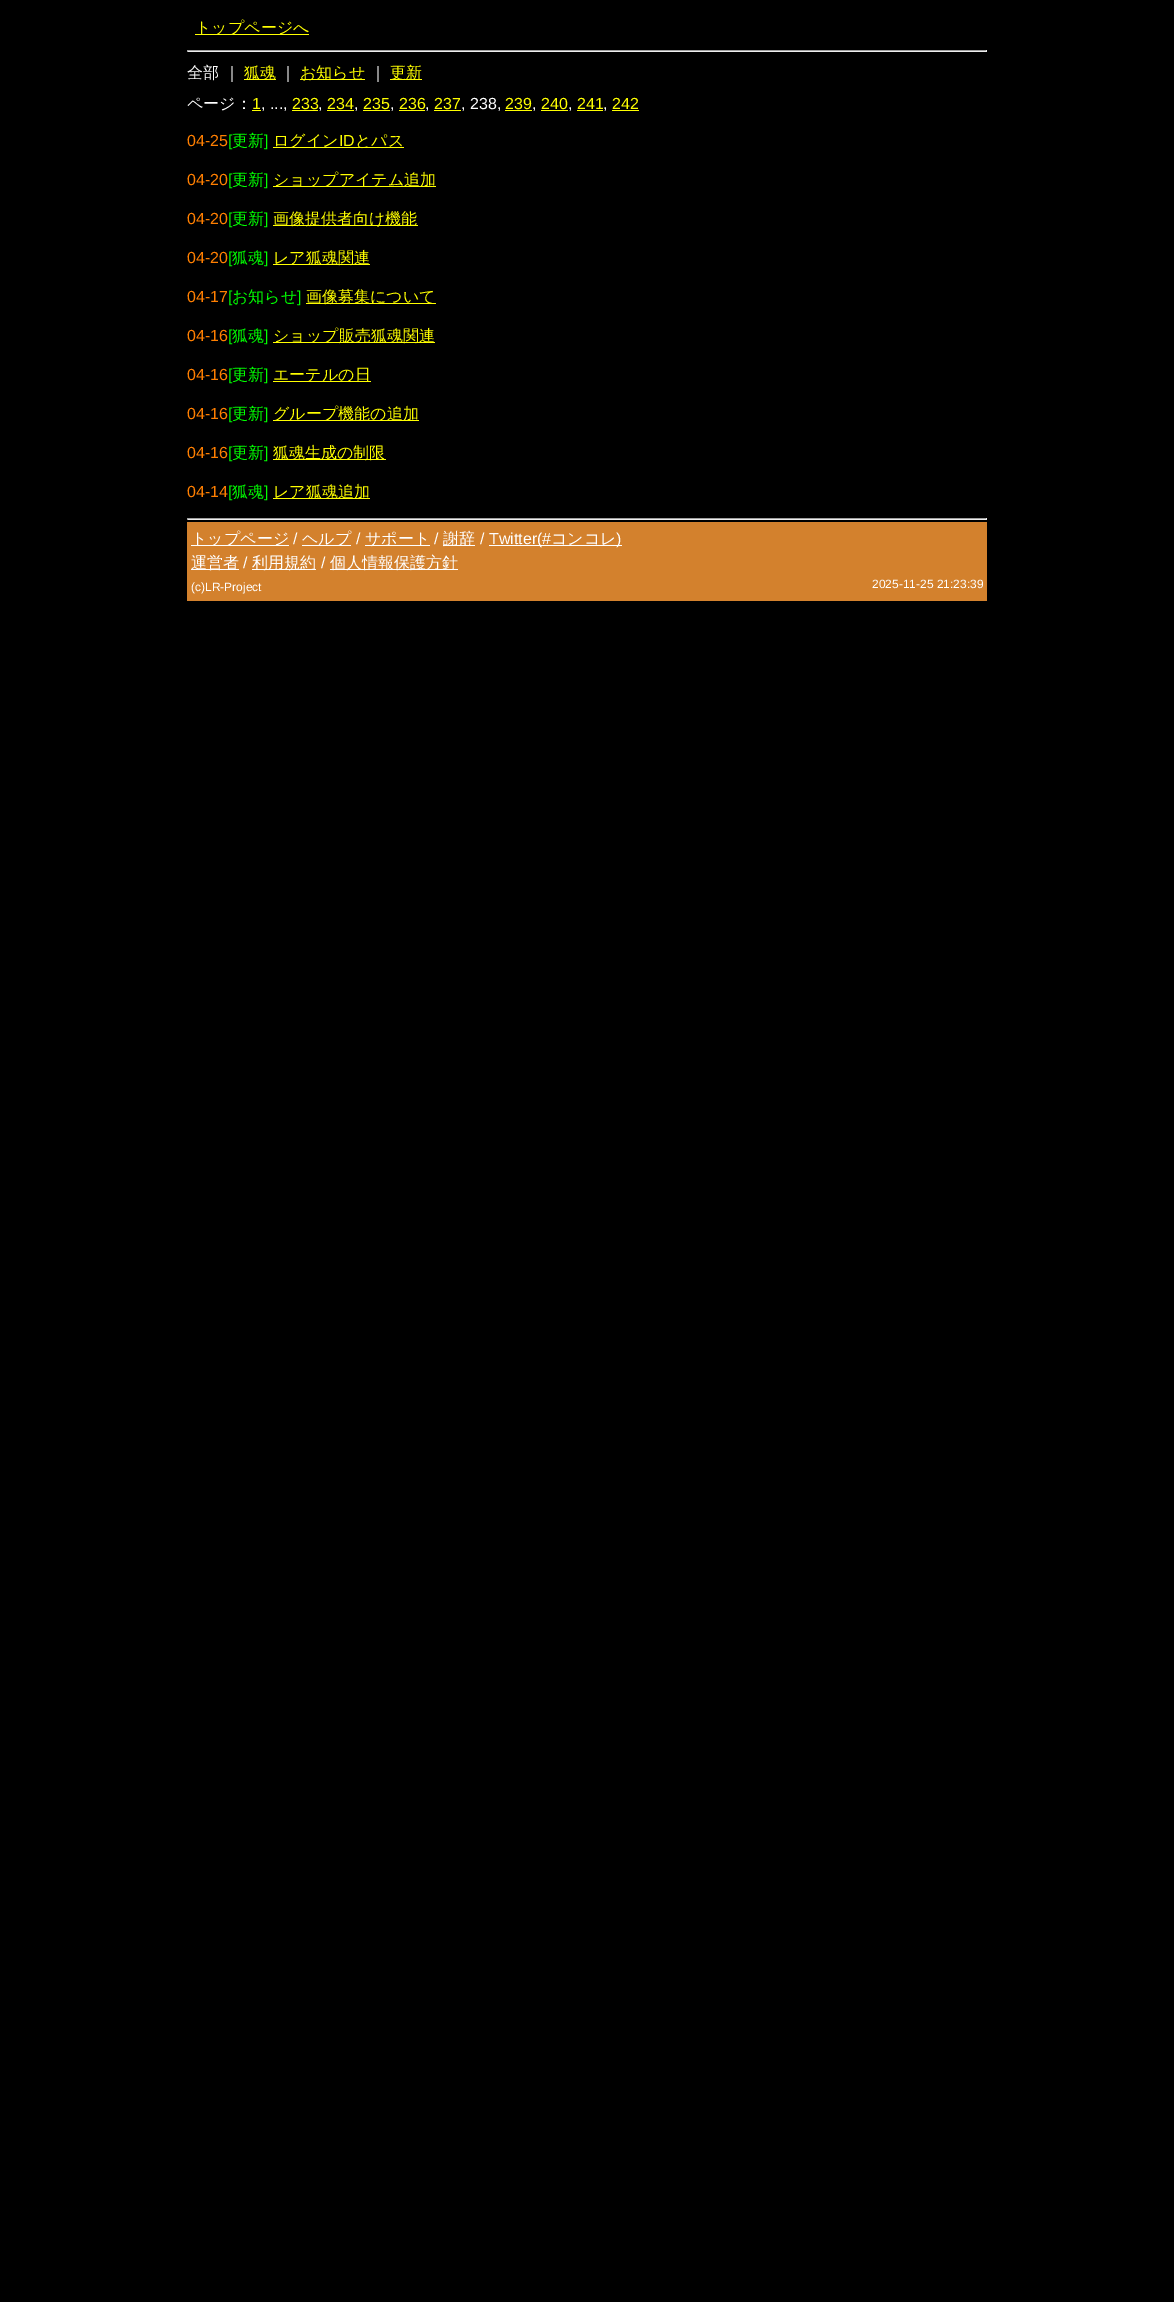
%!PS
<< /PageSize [1174 2302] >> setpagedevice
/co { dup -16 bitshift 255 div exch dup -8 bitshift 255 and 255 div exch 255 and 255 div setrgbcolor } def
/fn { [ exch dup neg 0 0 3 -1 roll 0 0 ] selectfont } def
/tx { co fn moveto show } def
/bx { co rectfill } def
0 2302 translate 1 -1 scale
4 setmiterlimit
0 0 1174 2302 16#000000 bx
195 34 114 1 16#FFFF00 bx
187 50 800 1 16#9F9F9F bx
986 50 1 2 16#EEEEEE bx
187 51 800 1 16#EEEEEE bx
187 50 1 2 16#9F9F9F bx
244 79 32 1 16#FFFF00 bx
300 79 65 1 16#FFFF00 bx
390 79 32 1 16#FFFF00 bx
252 110 9 1 16#FFFF00 bx
292 110 26 1 16#FFFF00 bx
327 110 27 1 16#FFFF00 bx
363 110 27 1 16#FFFF00 bx
399 110 26 1 16#FFFF00 bx
434 110 27 1 16#FFFF00 bx
505 110 27 1 16#FFFF00 bx
541 110 27 1 16#FFFF00 bx
577 110 26 1 16#FFFF00 bx
612 110 27 1 16#FFFF00 bx
273 147 131 1 16#FFFF00 bx
273 186 163 1 16#FFFF00 bx
273 225 145 1 16#FFFF00 bx
273 264 97 1 16#FFFF00 bx
306 303 130 1 16#FFFF00 bx
273 342 162 1 16#FFFF00 bx
273 381 98 1 16#FFFF00 bx
273 420 146 1 16#FFFF00 bx
273 459 113 1 16#FFFF00 bx
273 498 97 1 16#FFFF00 bx
187 518 800 1 16#9F9F9F bx
986 518 1 2 16#EEEEEE bx
187 519 800 1 16#EEEEEE bx
187 518 1 2 16#9F9F9F bx
187 522 800 79 16#D3812D bx
191 545 98 1 16#FFFFFF bx
302 545 49 1 16#FFFFFF bx
365 545 65 1 16#FFFFFF bx
443 545 32 1 16#FFFFFF bx
489 545 133 1 16#FFFFFF bx
191 569 48 1 16#FFFFFF bx
252 569 64 1 16#FFFFFF bx
330 569 128 1 16#FFFFFF bx
(トップページへ) 195 33 /WenQuanYiZenHei-Medium 16 16#FFFF00 tx
(全部 ｜) 187 78 /WenQuanYiZenHei-Medium 16 16#FFFFFF tx
(狐魂) 244 78 /WenQuanYiZenHei-Medium 16 16#FFFF00 tx
(｜) 280 78 /WenQuanYiZenHei-Medium 16 16#FFFFFF tx
(お知らせ) 300 78 /WenQuanYiZenHei-Medium 16 16#FFFF00 tx
(｜) 370 78 /WenQuanYiZenHei-Medium 16 16#FFFFFF tx
(更新) 390 78 /WenQuanYiZenHei-Medium 16 16#FFFF00 tx
(ページ：) 187 109 /WenQuanYiZenHei-Medium 16 16#FFFFFF tx
(1) 252 109 /LiberationSans-Regular 16 16#FFFF00 tx
(233) 292 109 /LiberationSans-Regular 16 16#FFFF00 tx
(234) 327 109 /LiberationSans-Regular 16 16#FFFF00 tx
(235) 363 109 /LiberationSans-Regular 16 16#FFFF00 tx
(236) 399 109 /LiberationSans-Regular 16 16#FFFF00 tx
(237) 434 109 /LiberationSans-Regular 16 16#FFFF00 tx
(, 238,) 461 109 /LiberationSans-Regular 16 16#FFFFFF tx
(239) 505 109 /LiberationSans-Regular 16 16#FFFF00 tx
(240) 541 109 /LiberationSans-Regular 16 16#FFFF00 tx
(241) 577 109 /LiberationSans-Regular 16 16#FFFF00 tx
(242) 612 109 /LiberationSans-Regular 16 16#FFFF00 tx
(, ...,) 261 109 /LiberationSans-Regular 16 16#FFFFFF tx
(,) 318 109 /LiberationSans-Regular 16 16#FFFFFF tx
(,) 354 109 /LiberationSans-Regular 16 16#FFFFFF tx
(,) 390 109 /LiberationSans-Regular 16 16#FFFFFF tx
(,) 425 109 /LiberationSans-Regular 16 16#FFFFFF tx
(,) 532 109 /LiberationSans-Regular 16 16#FFFFFF tx
(,) 568 109 /LiberationSans-Regular 16 16#FFFFFF tx
(,) 603 109 /LiberationSans-Regular 16 16#FFFFFF tx
(04-25) 187 146 /LiberationSans-Regular 16 16#FF7F00 tx
([) 228 146 /LiberationSans-Regular 16 16#00FF00 tx
(更新) 232 146 /WenQuanYiZenHei-Medium 16 16#00FF00 tx
(]) 264 146 /LiberationSans-Regular 16 16#00FF00 tx
(ログイン) 273 146 /WenQuanYiZenHei-Medium 16 16#FFFF00 tx
(ID) 339 146 /LiberationSans-Regular 16 16#FFFF00 tx
(とパス) 355 146 /WenQuanYiZenHei-Medium 16 16#FFFF00 tx
(04-20) 187 185 /LiberationSans-Regular 16 16#FF7F00 tx
([) 228 185 /LiberationSans-Regular 16 16#00FF00 tx
(更新) 232 185 /WenQuanYiZenHei-Medium 16 16#00FF00 tx
(]) 264 185 /LiberationSans-Regular 16 16#00FF00 tx
(ショップアイテム追加) 273 185 /WenQuanYiZenHei-Medium 16 16#FFFF00 tx
(04-20) 187 224 /LiberationSans-Regular 16 16#FF7F00 tx
([) 228 224 /LiberationSans-Regular 16 16#00FF00 tx
(更新) 232 224 /WenQuanYiZenHei-Medium 16 16#00FF00 tx
(]) 264 224 /LiberationSans-Regular 16 16#00FF00 tx
(画像提供者向け機能) 273 224 /WenQuanYiZenHei-Medium 16 16#FFFF00 tx
(04-20) 187 263 /LiberationSans-Regular 16 16#FF7F00 tx
([) 228 263 /LiberationSans-Regular 16 16#00FF00 tx
(狐魂) 232 263 /WenQuanYiZenHei-Medium 16 16#00FF00 tx
(]) 264 263 /LiberationSans-Regular 16 16#00FF00 tx
(レア狐魂関連) 273 263 /WenQuanYiZenHei-Medium 16 16#FFFF00 tx
(04-17) 187 302 /LiberationSans-Regular 16 16#FF7F00 tx
([) 228 302 /LiberationSans-Regular 16 16#00FF00 tx
(お知らせ) 232 302 /WenQuanYiZenHei-Medium 16 16#00FF00 tx
(]) 297 302 /LiberationSans-Regular 16 16#00FF00 tx
(画像募集について) 306 302 /WenQuanYiZenHei-Medium 16 16#FFFF00 tx
(04-16) 187 341 /LiberationSans-Regular 16 16#FF7F00 tx
([) 228 341 /LiberationSans-Regular 16 16#00FF00 tx
(狐魂) 232 341 /WenQuanYiZenHei-Medium 16 16#00FF00 tx
(]) 264 341 /LiberationSans-Regular 16 16#00FF00 tx
(ショップ販売狐魂関連) 273 341 /WenQuanYiZenHei-Medium 16 16#FFFF00 tx
(04-16) 187 380 /LiberationSans-Regular 16 16#FF7F00 tx
([) 228 380 /LiberationSans-Regular 16 16#00FF00 tx
(更新) 232 380 /WenQuanYiZenHei-Medium 16 16#00FF00 tx
(]) 264 380 /LiberationSans-Regular 16 16#00FF00 tx
(エーテルの日) 273 380 /WenQuanYiZenHei-Medium 16 16#FFFF00 tx
(04-16) 187 419 /LiberationSans-Regular 16 16#FF7F00 tx
([) 228 419 /LiberationSans-Regular 16 16#00FF00 tx
(更新) 232 419 /WenQuanYiZenHei-Medium 16 16#00FF00 tx
(]) 264 419 /LiberationSans-Regular 16 16#00FF00 tx
(グループ機能の追加) 273 419 /WenQuanYiZenHei-Medium 16 16#FFFF00 tx
(04-16) 187 458 /LiberationSans-Regular 16 16#FF7F00 tx
([) 228 458 /LiberationSans-Regular 16 16#00FF00 tx
(更新) 232 458 /WenQuanYiZenHei-Medium 16 16#00FF00 tx
(]) 264 458 /LiberationSans-Regular 16 16#00FF00 tx
(狐魂生成の制限) 273 458 /WenQuanYiZenHei-Medium 16 16#FFFF00 tx
(04-14) 187 497 /LiberationSans-Regular 16 16#FF7F00 tx
([) 228 497 /LiberationSans-Regular 16 16#00FF00 tx
(狐魂) 232 497 /WenQuanYiZenHei-Medium 16 16#00FF00 tx
(]) 264 497 /LiberationSans-Regular 16 16#00FF00 tx
(レア狐魂追加) 273 497 /WenQuanYiZenHei-Medium 16 16#FFFF00 tx
(トップページ) 191 544 /WenQuanYiZenHei-Medium 16 16#FFFFFF tx
(/) 293 544 /LiberationSans-Regular 16 16#FFFFFF tx
(ヘルプ) 302 544 /WenQuanYiZenHei-Medium 16 16#FFFFFF tx
(/) 356 544 /LiberationSans-Regular 16 16#FFFFFF tx
(サポート) 365 544 /WenQuanYiZenHei-Medium 16 16#FFFFFF tx
(/) 434 544 /LiberationSans-Regular 16 16#FFFFFF tx
(謝辞) 443 544 /WenQuanYiZenHei-Medium 16 16#FFFFFF tx
(/) 480 544 /LiberationSans-Regular 16 16#FFFFFF tx
(Twitter\(#) 489 544 /LiberationSans-Regular 16 16#FFFFFF tx
(コンコレ) 551 544 /WenQuanYiZenHei-Medium 16 16#FFFFFF tx
(\)) 616 544 /LiberationSans-Regular 16 16#FFFFFF tx
(運営者) 191 568 /WenQuanYiZenHei-Medium 16 16#FFFFFF tx
(/) 243 568 /LiberationSans-Regular 16 16#FFFFFF tx
(利用規約) 252 568 /WenQuanYiZenHei-Medium 16 16#FFFFFF tx
(/) 321 568 /LiberationSans-Regular 16 16#FFFFFF tx
(個人情報保護方針) 330 568 /WenQuanYiZenHei-Medium 16 16#FFFFFF tx
(\(c\)LR-Project) 191 591 /LiberationSans-Regular 12 16#FFFFFF tx
(2025-11-25 21:23:39) 872 588 /LiberationSans-Regular 12 16#FFFFFF tx
showpage
